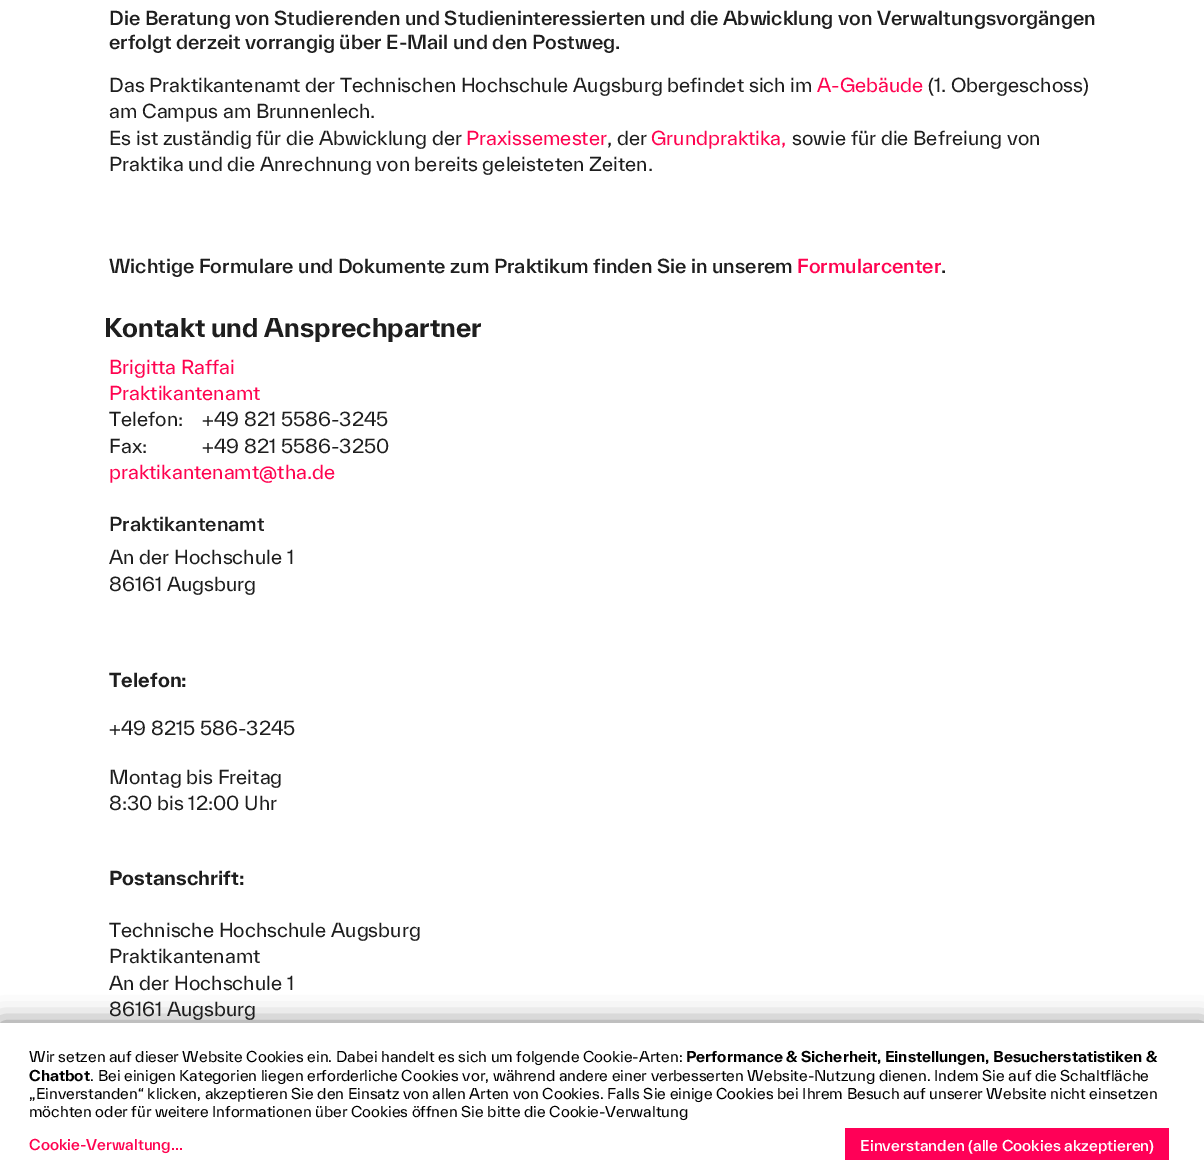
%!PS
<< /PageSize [1204 1175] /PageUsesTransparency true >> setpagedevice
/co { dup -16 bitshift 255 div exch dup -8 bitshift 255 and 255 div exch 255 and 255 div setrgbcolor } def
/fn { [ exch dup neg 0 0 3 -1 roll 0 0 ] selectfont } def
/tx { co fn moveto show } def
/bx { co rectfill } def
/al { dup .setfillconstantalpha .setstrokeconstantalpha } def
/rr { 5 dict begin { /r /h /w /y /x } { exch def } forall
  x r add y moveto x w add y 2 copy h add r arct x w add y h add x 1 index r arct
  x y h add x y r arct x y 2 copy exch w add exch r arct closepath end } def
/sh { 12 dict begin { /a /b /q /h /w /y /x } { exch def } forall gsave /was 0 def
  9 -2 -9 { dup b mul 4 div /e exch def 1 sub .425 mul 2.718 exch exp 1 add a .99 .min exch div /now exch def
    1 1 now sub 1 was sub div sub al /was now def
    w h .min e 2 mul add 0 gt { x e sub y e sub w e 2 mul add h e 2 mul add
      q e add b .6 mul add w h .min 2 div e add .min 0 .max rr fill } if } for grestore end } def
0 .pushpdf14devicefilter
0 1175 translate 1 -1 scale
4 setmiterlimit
0 0 1204 1175 16#FFFFFF bx
16#000000 co
0 1023 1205 152 0 12.5 .5 sh
0 1023 1204 152 16#FFFFFF bx
845 1128 324 32 16#FF0057 bx
(Die Beratung von Studierenden und Studieninteressierten und die Abwicklung von Verwaltungsvorgängen) 109 25 /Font-Medium 18.75 16#1E1E1E tx
(erfolgt derzeit vorrangig über E-Mail und den Postweg.) 109 49 /Font-Medium 18.75 16#1E1E1E tx
(Das Praktikantenamt der Technischen Hochschule Augsburg befindet sich im) 109 92 /Font-Regular 18.75 16#1E1E1E tx
(A-Gebäude) 817 92 /Font-Regular 18.75 16#FF0350 tx
(\(1. Obergeschoss\)) 928 92 /Font-Regular 18.75 16#1E1E1E tx
(am Campus am Brunnenlech.) 109 118 /Font-Regular 18.75 16#1E1E1E tx
(Es ist zuständig für die Abwicklung der) 109 145 /Font-Regular 18.75 16#1E1E1E tx
(Praxissemester) 466 145 /Font-Regular 18.75 16#FF0350 tx
(, der) 607 145 /Font-Regular 18.75 16#1E1E1E tx
(Grundpraktika,) 651 145 /Font-Regular 18.75 16#FF0350 tx
(sowie für die Befreiung von) 792 145 /Font-Regular 18.75 16#1E1E1E tx
(Praktika und die Anrechnung von bereits geleisteten Zeiten.) 109 171 /Font-Regular 18.75 16#1E1E1E tx
(Wichtige Formulare und Dokumente zum Praktikum finden Sie in unserem) 109 273 /Font-Medium 18.75 16#1E1E1E tx
(Formularcenter) 797 273 /Font-Medium 18.75 16#FF0350 tx
(.) 941 273 /Font-Medium 18.75 16#1E1E1E tx
(Kontakt und Ansprechpartner) 104 337 /Font-Bold 25 16#1E1E1E tx
(Brigitta Raffai) 109 374 /Font-Regular 18.75 16#FF0350 tx
(Praktikantenamt) 109 400 /Font-Regular 18.75 16#FF0350 tx
(Telefon:) 109 426 /Font-Regular 18.75 16#1E1E1E tx
(+49 821 5586-3245) 202 426 /Font-Regular 18.75 16#1E1E1E tx
(Fax:) 109 453 /Font-Regular 18.75 16#1E1E1E tx
(+49 821 5586-3250) 202 453 /Font-Regular 18.75 16#1E1E1E tx
(praktikantenamt@tha.de) 109 479 /Font-Regular 18.75 16#FF0350 tx
(Praktikantenamt) 109 531 /Font-Medium 18.75 16#1E1E1E tx
(An der Hochschule 1) 109 564 /Font-Regular 18.75 16#1E1E1E tx
(86161 Augsburg) 109 591 /Font-Regular 18.75 16#1E1E1E tx
(Telefon:) 109 687 /Font-Bold 18.75 16#1E1E1E tx
(+49 8215 586-3245) 109 735 /Font-Regular 18.75 16#1E1E1E tx
(Montag bis Freitag) 109 784 /Font-Regular 18.75 16#1E1E1E tx
(8:30 bis 12:00 Uhr) 109 810 /Font-Regular 18.75 16#1E1E1E tx
(Postanschrift:) 109 885 /Font-Bold 18.75 16#1E1E1E tx
(Technische Hochschule Augsburg) 109 937 /Font-Regular 18.75 16#1E1E1E tx
(Praktikantenamt) 109 963 /Font-Regular 18.75 16#1E1E1E tx
(An der Hochschule 1) 109 990 /Font-Regular 18.75 16#1E1E1E tx
(86161 Augsburg) 109 1016 /Font-Regular 18.75 16#1E1E1E tx
(Wir setzen auf dieser Website Cookies ein. Dabei handelt es sich um folgende Cookie-Arten:) 29 1062 /Font-Regular 14.58 16#000000 tx
(Performance & Sicherheit, Einstellungen, Besucherstatistiken &) 686 1062 /Font-Bold 14.58 16#000000 tx
(Chatbot) 29 1081 /Font-Bold 14.58 16#000000 tx
(. Bei einigen Kategorien liegen erforderliche Cookies vor, während andere einer verbesserten Website-Nutzung dienen. Indem Sie auf die Schaltfläche) 90 1081 /Font-Regular 14.58 16#000000 tx
(„Einverstanden“ klicken, akzeptieren Sie den Einsatz von allen Arten von Cookies. Falls Sie einige Cookies bei Ihrem Besuch auf unserer Website nicht einsetzen) 29 1099 /Font-Regular 14.58 16#000000 tx
(möchten oder für weitere Informationen über Cookies öffnen Sie bitte die Cookie-Verwaltung) 29 1117 /Font-Regular 14.58 16#000000 tx
(Cookie-Verwaltung...) 29 1150 /Font-Medium 14.58 16#FF0350 tx
(Einverstanden \(alle Cookies akzeptieren\)) 860 1151 /Font-Medium 14.58 16#FFFFFF tx
.poppdf14devicefilter showpage
